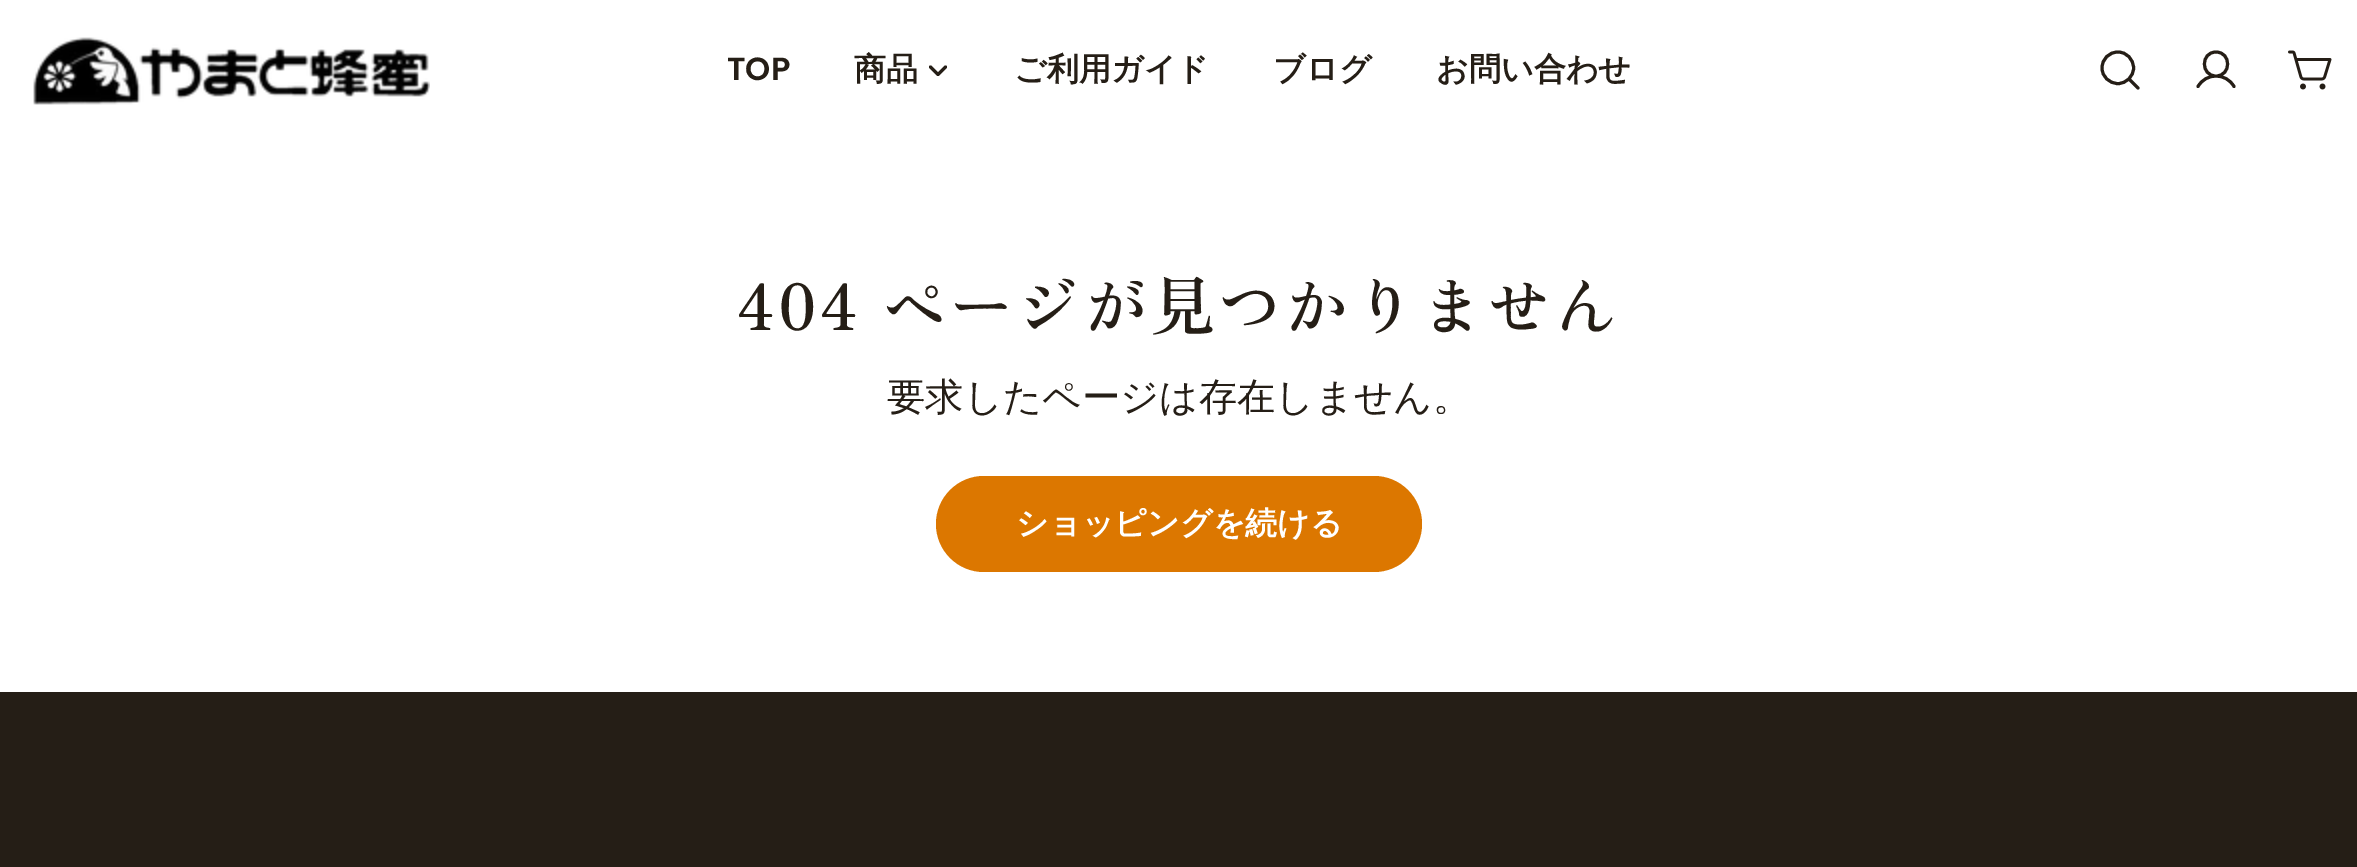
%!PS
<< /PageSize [2357 867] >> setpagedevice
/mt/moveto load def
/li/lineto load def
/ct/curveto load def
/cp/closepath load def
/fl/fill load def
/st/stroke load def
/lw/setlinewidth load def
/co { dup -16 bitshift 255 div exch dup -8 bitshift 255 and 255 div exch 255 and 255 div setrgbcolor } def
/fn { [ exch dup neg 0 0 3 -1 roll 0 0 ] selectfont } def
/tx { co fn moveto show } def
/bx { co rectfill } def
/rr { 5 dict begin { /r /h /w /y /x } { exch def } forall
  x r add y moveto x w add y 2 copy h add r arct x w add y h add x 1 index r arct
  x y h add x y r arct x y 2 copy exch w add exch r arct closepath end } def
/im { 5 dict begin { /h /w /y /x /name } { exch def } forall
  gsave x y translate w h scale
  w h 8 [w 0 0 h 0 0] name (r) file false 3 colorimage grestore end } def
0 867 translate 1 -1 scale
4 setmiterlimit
0 0 2357 867 16#FFFFFF bx
(media/1.raw) 33 37 397 68 im
16#251E16 co
3 lw
1 setlinecap
1 setlinejoin
945.5 67 mt 938 74.5 li 930.5 67 li st
2118 83.5 mt 2126.5 83.5 2133.5 76.5 2133.5 68 ct 2133.5 59 2126.5 52 2118 52 ct 2109 52 2102 59 2102 68 ct 2102 76.5 2109 83.5 2118 83.5 ct cp 2129 79 mt 2138 88 li st
2216 76 mt 2231.5 76 2231.5 52 2216 52 ct 2200.5 52 2200.5 76 2216 76 ct cp 2198 86.5 mt 2206 72.5 2226 72.5 2234 86.5 ct st
(media/2.raw) 2288 50 44 40 im
16#DC7700 co
936 476 486 96 48 rr fl
0 692 2357 175 16#251E16 bx
(TOP) 727 80 /Poppins-SemiBold 32 16#251E16 tx
(商品) 854 80 /WenQuanYiZenHei-Bold 32 16#251E16 tx
(ご利用ガイド) 1014 80 /WenQuanYiZenHei-Bold 32 16#251E16 tx
(ブログ) 1273 80 /WenQuanYiZenHei-Bold 32 16#251E16 tx
(お問い合わせ) 1436 80 /WenQuanYiZenHei-Bold 32 16#251E16 tx
/ZenOldMincho-SemiBold 64 fn
737 330 mt 3.25 0 (404 ページが見つかりません) ashow
(要求したページは存在しません。) 887 410 /WenQuanYiZenHei-Medium 38.4 16#251E16 tx
(ショッピングを続ける) 1016 534 /WenQuanYiZenHei-Bold 32 16#FFFFFF tx
showpage
